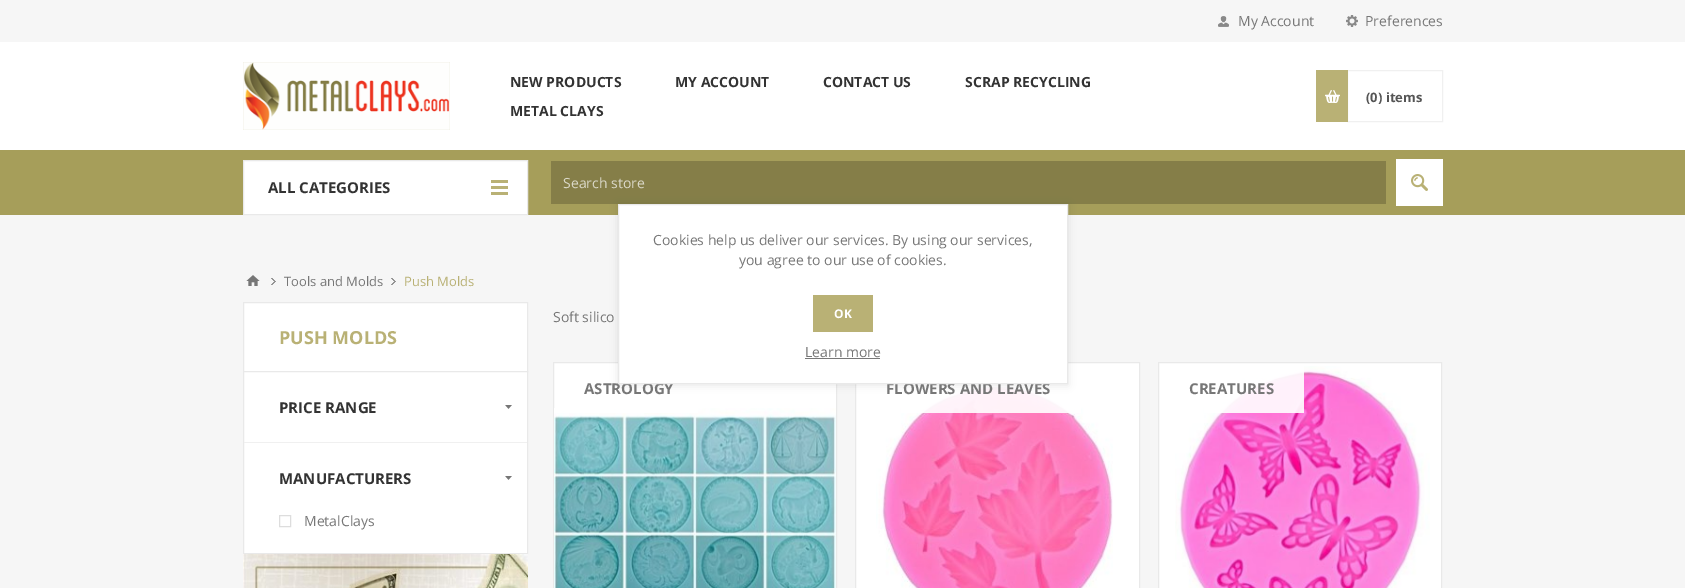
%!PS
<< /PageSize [1685 588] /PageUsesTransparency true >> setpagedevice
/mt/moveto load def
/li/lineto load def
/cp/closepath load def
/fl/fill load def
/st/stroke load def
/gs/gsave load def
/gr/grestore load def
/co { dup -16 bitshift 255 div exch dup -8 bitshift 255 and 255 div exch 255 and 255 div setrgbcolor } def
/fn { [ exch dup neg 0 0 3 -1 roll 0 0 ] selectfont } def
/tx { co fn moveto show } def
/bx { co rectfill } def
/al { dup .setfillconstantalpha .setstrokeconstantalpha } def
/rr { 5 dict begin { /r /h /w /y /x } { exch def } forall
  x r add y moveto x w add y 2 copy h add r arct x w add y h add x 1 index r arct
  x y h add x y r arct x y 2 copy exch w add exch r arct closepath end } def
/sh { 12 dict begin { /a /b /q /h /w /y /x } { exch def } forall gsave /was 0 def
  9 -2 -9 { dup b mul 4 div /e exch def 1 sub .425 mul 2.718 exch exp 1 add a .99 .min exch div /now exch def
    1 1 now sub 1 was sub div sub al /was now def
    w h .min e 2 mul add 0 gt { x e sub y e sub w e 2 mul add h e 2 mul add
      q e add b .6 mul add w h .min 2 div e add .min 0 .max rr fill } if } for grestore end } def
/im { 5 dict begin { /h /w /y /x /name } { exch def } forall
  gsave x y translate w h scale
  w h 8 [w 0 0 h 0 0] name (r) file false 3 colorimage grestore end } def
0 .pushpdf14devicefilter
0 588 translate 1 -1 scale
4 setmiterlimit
0 0 1685 588 16#F6F6F6 bx
(media/1.raw) 1218 16 11 11 im
(media/2.raw) 1346 15 12 12 im
0 42 1685 108 16#FFFFFF bx
(media/3.raw) 243 62 207 68 im
16#F0F0F0 co
1347.5 70.5 95 51 rectstroke
1316 70 32 52 16#B9B175 bx
(media/4.raw) 1325 90 15 13 im
0 150 1685 65 16#A69E5A bx
16#FFFFFF co
243.5 160.5 mt 527.5 160.5 li 527.5 214.5 li 243.5 214.5 li cp gs fl gr
16#E9E9E9 co
st
491 180 17 15 16#B9B175 bx
(media/5.raw) 491 183 17 9 im
551 161 835 43 16#857E48 bx
1411 174 17 17 16#B9B175 bx
(media/6.raw) 1396 159 47 47 im
(media/7.raw) 246 275 14 11 im
(media/8.raw) 271 278 5 7 im
(media/8.raw) 391 278 5 7 im
16#FFFFFF co
243.5 302.5 mt 527.5 302.5 li 527.5 371.5 li 243.5 371.5 li cp gs fl gr
16#E9E9E9 co
st
16#FFFFFF co
243.5 371.5 mt 527.5 371.5 li 527.5 553.5 li 243.5 553.5 li cp gs fl gr
16#E9E9E9 co
st
(media/9.raw) 505 405 7 4 im
244 442 283 1 16#F0F0F0 bx
(media/9.raw) 505 476 7 4 im
16#DDDDDD co
279.5 515.5 11 11 rectstroke
(media/10.raw) 243 554 285 34 im
16#FFFFFF co
553.5 362.5 mt 836.5 362.5 li 836.5 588.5 li 553.5 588.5 li cp gs fl gr
16#E9E9E9 co
st
(media/11.raw) 554 408 282 180 im
0.9 al
554 408 144 5 16#FFFFFF bx
1 al
855.5 362.5 mt 1139.5 362.5 li 1139.5 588.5 li 855.5 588.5 li cp gs fl gr
16#E9E9E9 co
st
(media/12.raw) 876 378 237 210 im
0.9 al
901 378 180 35 16#FFFFFF bx
1 al
1158.5 362.5 mt 1441.5 362.5 li 1441.5 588.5 li 1158.5 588.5 li cp gs fl gr
16#E9E9E9 co
st
(media/13.raw) 1175 366 255 222 im
0.9 al
1204 366 100 47 16#FFFFFF bx
1 al
16#000000 co
618 205 450 180 0 4 .1 sh
(My Account) 1238 26 /OpenSans-Regular 14 16#777777 tx
(Preferences) 1365 26 /OpenSans-Regular 14 16#777777 tx
(NEW PRODUCTS) 510 87 /OpenSans-Bold 14 16#333333 tx
(MY ACCOUNT) 675 87 /OpenSans-Bold 14 16#333333 tx
(CONTACT US) 823 87 /OpenSans-Bold 14 16#333333 tx
(SCRAP RECYCLING) 965 87 /OpenSans-Bold 14 16#333333 tx
(METAL CLAYS) 510 116 /OpenSans-Bold 14 16#333333 tx
(\(0\) items) 1366 102 /OpenSans-Bold 13 16#555555 tx
(ALL CATEGORIES) 268 193 /OpenSans-Bold 15 16#333333 tx
(Search store) 563 188 /OpenSans-Regular 14 16#DAD8C8 tx
(Tools and Molds) 284 286 /OpenSans-Regular 13 16#777777 tx
(Push Molds) 404 286 /OpenSans-Regular 13 16#B9B175 tx
(PUSH MOLDS) 279 344 /OpenSans-Bold 18 16#B9B175 tx
(PRICE RANGE) 279 413 /OpenSans-Bold 15 16#333333 tx
(MANUFACTURERS) 279 484 /OpenSans-Bold 15 16#333333 tx
(MetalClays) 304 526 /OpenSans-Regular 14 16#777777 tx
(Soft silico) 553 322 /OpenSans-Regular 14 16#777777 tx
(ASTROLOGY) 584 394 /OpenSans-Bold 15 16#777777 tx
(FLOWERS AND LEAVES) 886 394 /OpenSans-Bold 15 16#777777 tx
(CREATURES) 1189 394 /OpenSans-Bold 15 16#777777 tx
16#FFFFFF co
618.5 204.5 mt 1067.5 204.5 li 1067.5 383.5 li 618.5 383.5 li cp gs fl gr
16#E9E9E9 co
st
(Cookies help us deliver our services. By using our services,) 653 245 /OpenSans-Regular 14 16#777777 tx
(you agree to our use of cookies.) 739 265 /OpenSans-Regular 14 16#777777 tx
813 295 60 37 16#B9B175 bx
(OK) 834 318 /OpenSans-Bold 12 16#FFFFFF tx
(Learn more) 805 357 /OpenSans-Regular 14 16#777777 tx
805 358 75 1 16#777777 bx
.poppdf14devicefilter showpage
